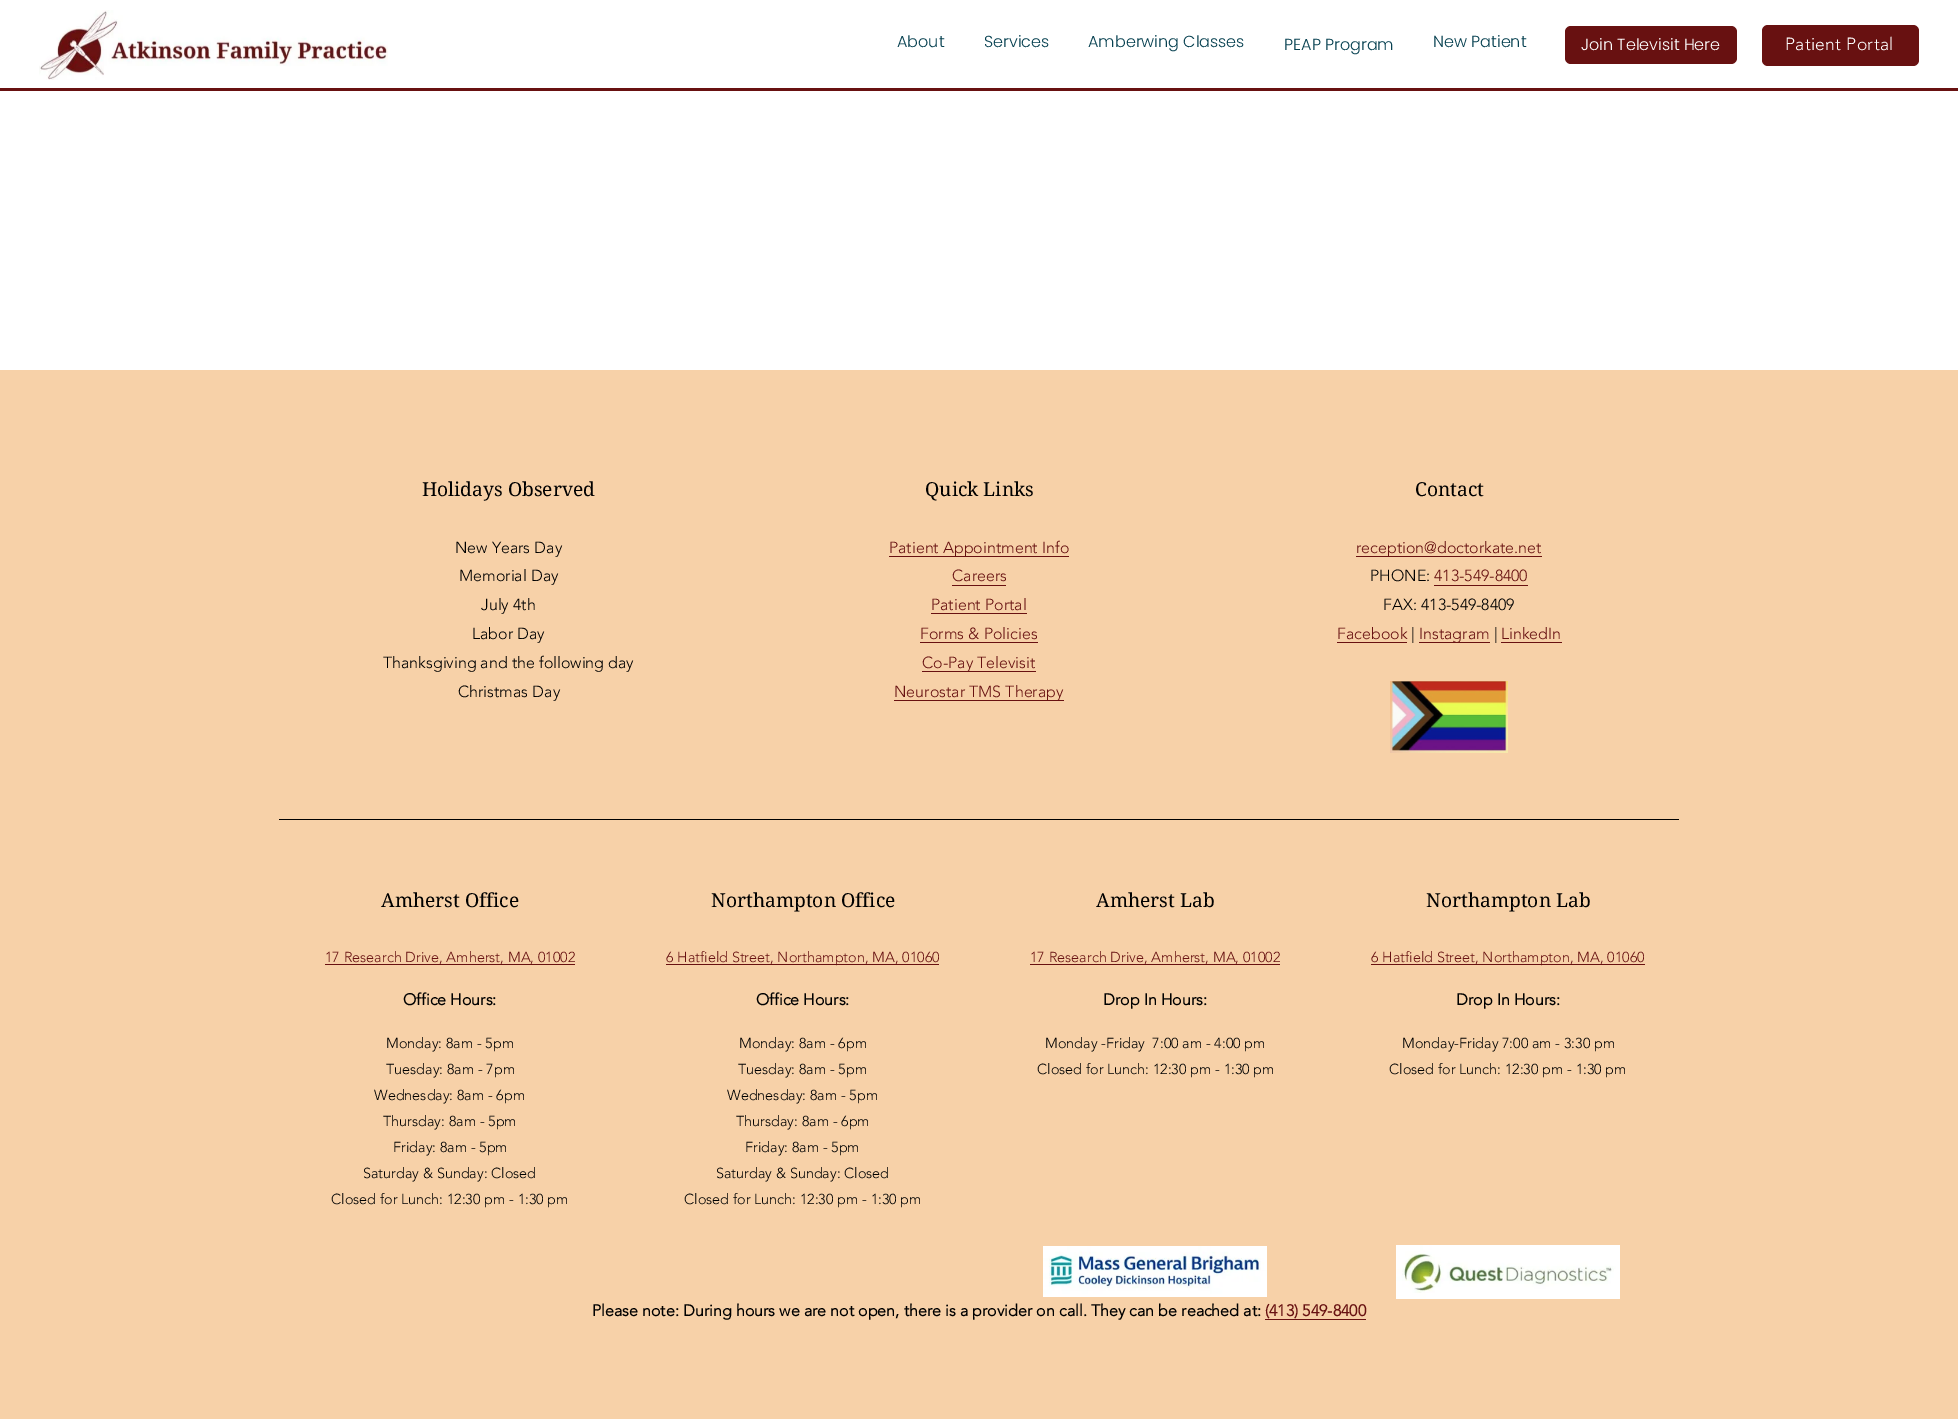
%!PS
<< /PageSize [1958 1419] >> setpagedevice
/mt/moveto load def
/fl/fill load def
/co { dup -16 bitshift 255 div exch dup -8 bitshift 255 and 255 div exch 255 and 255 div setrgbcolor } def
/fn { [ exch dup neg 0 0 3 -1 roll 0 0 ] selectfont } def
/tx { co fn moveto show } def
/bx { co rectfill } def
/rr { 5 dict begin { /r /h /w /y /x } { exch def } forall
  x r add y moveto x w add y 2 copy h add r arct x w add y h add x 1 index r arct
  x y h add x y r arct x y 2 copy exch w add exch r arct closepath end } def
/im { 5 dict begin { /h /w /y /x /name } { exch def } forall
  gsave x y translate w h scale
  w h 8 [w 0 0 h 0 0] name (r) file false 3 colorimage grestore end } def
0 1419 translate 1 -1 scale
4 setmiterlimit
0 0 1958 1419 16#FFFFFF bx
(media/1.raw) 39 10 349 70 im
16#681111 co
1565 26 172 38 6 rr fl
1762 25 157 41 6 rr fl
0 88 1958 3 16#681111 bx
0 370 1958 1049 16#F7D1A8 bx
889 556 180 1 16#681111 bx
952 585 54 1 16#681111 bx
931 613 96 1 16#681111 bx
920 642 118 1 16#681111 bx
922 671 114 1 16#681111 bx
894 700 170 1 16#681111 bx
1356 556 186 1 16#681111 bx
1434 585 94 1 16#681111 bx
1337 642 70 1 16#681111 bx
1419 642 71 1 16#681111 bx
1501 642 61 1 16#681111 bx
(media/2.raw) 1390 681 118 72 im
279 819 1400 1 16#000000 bx
325 964 250 1 16#681111 bx
666 964 273 1 16#681111 bx
1030 964 250 1 16#681111 bx
1371 964 274 1 16#681111 bx
(media/3.raw) 1043 1246 224 51 im
(media/4.raw) 1396 1245 224 54 im
1265 1319 101 1 16#681111 bx
(About) 897 47 /Poppins-Light 16 16#074151 tx
(Services) 984 47 /Poppins-Light 16 16#074151 tx
(Amberwing Classes) 1088 47 /Poppins-Light 16 16#074151 tx
(PEAP Program) 1284 50 /Poppins-Light 16 16#074151 tx
(New Patient) 1433 47 /Poppins-Light 16 16#074151 tx
(Join Televisit Here) 1581 50 /Poppins-Light 16 16#FFFFFF tx
/Avenir-Light 17.5 fn
1785 50 mt .3 0 (Patient Portal) ashow
(Holidays Observed) 422 496 /NotoSerif-Regular 19.25 16#000000 tx
(New Years Day) 455 553 /Avenir-Light 16 16#000000 tx
(Memorial Day) 459 581 /Avenir-Light 16 16#000000 tx
(July 4th) 481 610 /Avenir-Light 16 16#000000 tx
(Labor Day) 472 639 /Avenir-Light 16 16#000000 tx
(Thanksgiving and the following day) 383 668 /Avenir-Light 16 16#000000 tx
(Christmas Day) 458 697 /Avenir-Light 16 16#000000 tx
(Quick Links) 925 496 /NotoSerif-Regular 19.25 16#000000 tx
(Patient Appointment Info) 889 553 /Avenir-Light 16 16#681111 tx
(Careers) 952 581 /Avenir-Light 16 16#681111 tx
(Patient Portal) 931 610 /Avenir-Light 16 16#681111 tx
(Forms & Policies) 920 639 /Avenir-Light 16 16#681111 tx
(Co-Pay Televisit) 922 668 /Avenir-Light 16 16#681111 tx
(Neurostar TMS Therapy) 894 697 /Avenir-Light 16 16#681111 tx
(Contact) 1415 496 /NotoSerif-Regular 19.25 16#000000 tx
(reception@doctorkate.net) 1356 553 /Avenir-Light 16 16#681111 tx
(PHONE:) 1370 581 /Avenir-Light 16 16#000000 tx
(413-549-8400) 1434 581 /Avenir-Light 16 16#681111 tx
(FAX: 413-549-8409) 1383 610 /Avenir-Light 16 16#000000 tx
(Facebook) 1337 639 /Avenir-Light 16 16#681111 tx
(|) 1411 639 /Avenir-Light 16 16#000000 tx
(Instagram) 1419 639 /Avenir-Light 16 16#681111 tx
(|) 1494 639 /Avenir-Light 16 16#000000 tx
(LinkedIn) 1501 639 /Avenir-Light 16 16#681111 tx
(Amherst Office) 381 907 /NotoSerif-Regular 19.25 16#000000 tx
(17 Research Drive, Amherst, MA, 01002) 325 962 /Avenir-Light 14.4 16#681111 tx
(Office Hours:) 403 1005 /Avenir-Bold 16 16#000000 tx
(Monday: 8am - 5pm) 386 1048 /Avenir-Light 14.4 16#000000 tx
(Tuesday: 8am - 7pm) 386 1074 /Avenir-Light 14.4 16#000000 tx
(Wednesday: 8am - 6pm) 374 1100 /Avenir-Light 14.4 16#000000 tx
(Thursday: 8am - 5pm) 383 1126 /Avenir-Light 14.4 16#000000 tx
(Friday: 8am - 5pm) 393 1152 /Avenir-Light 14.4 16#000000 tx
(Saturday & Sunday: Closed) 363 1178 /Avenir-Light 14.4 16#000000 tx
(Closed for Lunch: 12:30 pm - 1:30 pm) 331 1204 /Avenir-Light 14.4 16#000000 tx
(Northampton Office) 711 907 /NotoSerif-Regular 19.25 16#000000 tx
(6 Hatfield Street, Northampton, MA, 01060) 666 962 /Avenir-Light 14.4 16#681111 tx
(Office Hours:) 756 1005 /Avenir-Bold 16 16#000000 tx
(Monday: 8am - 6pm) 739 1048 /Avenir-Light 14.4 16#000000 tx
(Tuesday: 8am - 5pm) 738 1074 /Avenir-Light 14.4 16#000000 tx
(Wednesday: 8am - 5pm) 727 1100 /Avenir-Light 14.4 16#000000 tx
(Thursday: 8am - 6pm) 736 1126 /Avenir-Light 14.4 16#000000 tx
(Friday: 8am - 5pm) 745 1152 /Avenir-Light 14.4 16#000000 tx
(Saturday & Sunday: Closed) 716 1178 /Avenir-Light 14.4 16#000000 tx
(Closed for Lunch: 12:30 pm - 1:30 pm) 684 1204 /Avenir-Light 14.4 16#000000 tx
(Amherst Lab) 1096 907 /NotoSerif-Regular 19.25 16#000000 tx
(17 Research Drive, Amherst, MA, 01002) 1030 962 /Avenir-Light 14.4 16#681111 tx
(Drop In Hours:) 1103 1005 /Avenir-Bold 16 16#000000 tx
(Monday -Friday  7:00 am - 4:00 pm) 1045 1048 /Avenir-Light 14.4 16#000000 tx
(Closed for Lunch: 12:30 pm - 1:30 pm) 1037 1074 /Avenir-Light 14.4 16#000000 tx
(Northampton Lab) 1426 907 /NotoSerif-Regular 19.25 16#000000 tx
(6 Hatfield Street, Northampton, MA, 01060) 1371 962 /Avenir-Light 14.4 16#681111 tx
(Drop In Hours:) 1456 1005 /Avenir-Bold 16 16#000000 tx
(Monday-Friday 7:00 am - 3:30 pm) 1402 1048 /Avenir-Light 14.4 16#000000 tx
(Closed for Lunch: 12:30 pm - 1:30 pm) 1389 1074 /Avenir-Light 14.4 16#000000 tx
(Please note: During hours we are not open, there is a provider on call. They can be reached at:) 592 1316 /Avenir-Bold 16 16#000000 tx
(\(413\) 549-8400) 1265 1316 /Avenir-Bold 16 16#681111 tx
showpage
